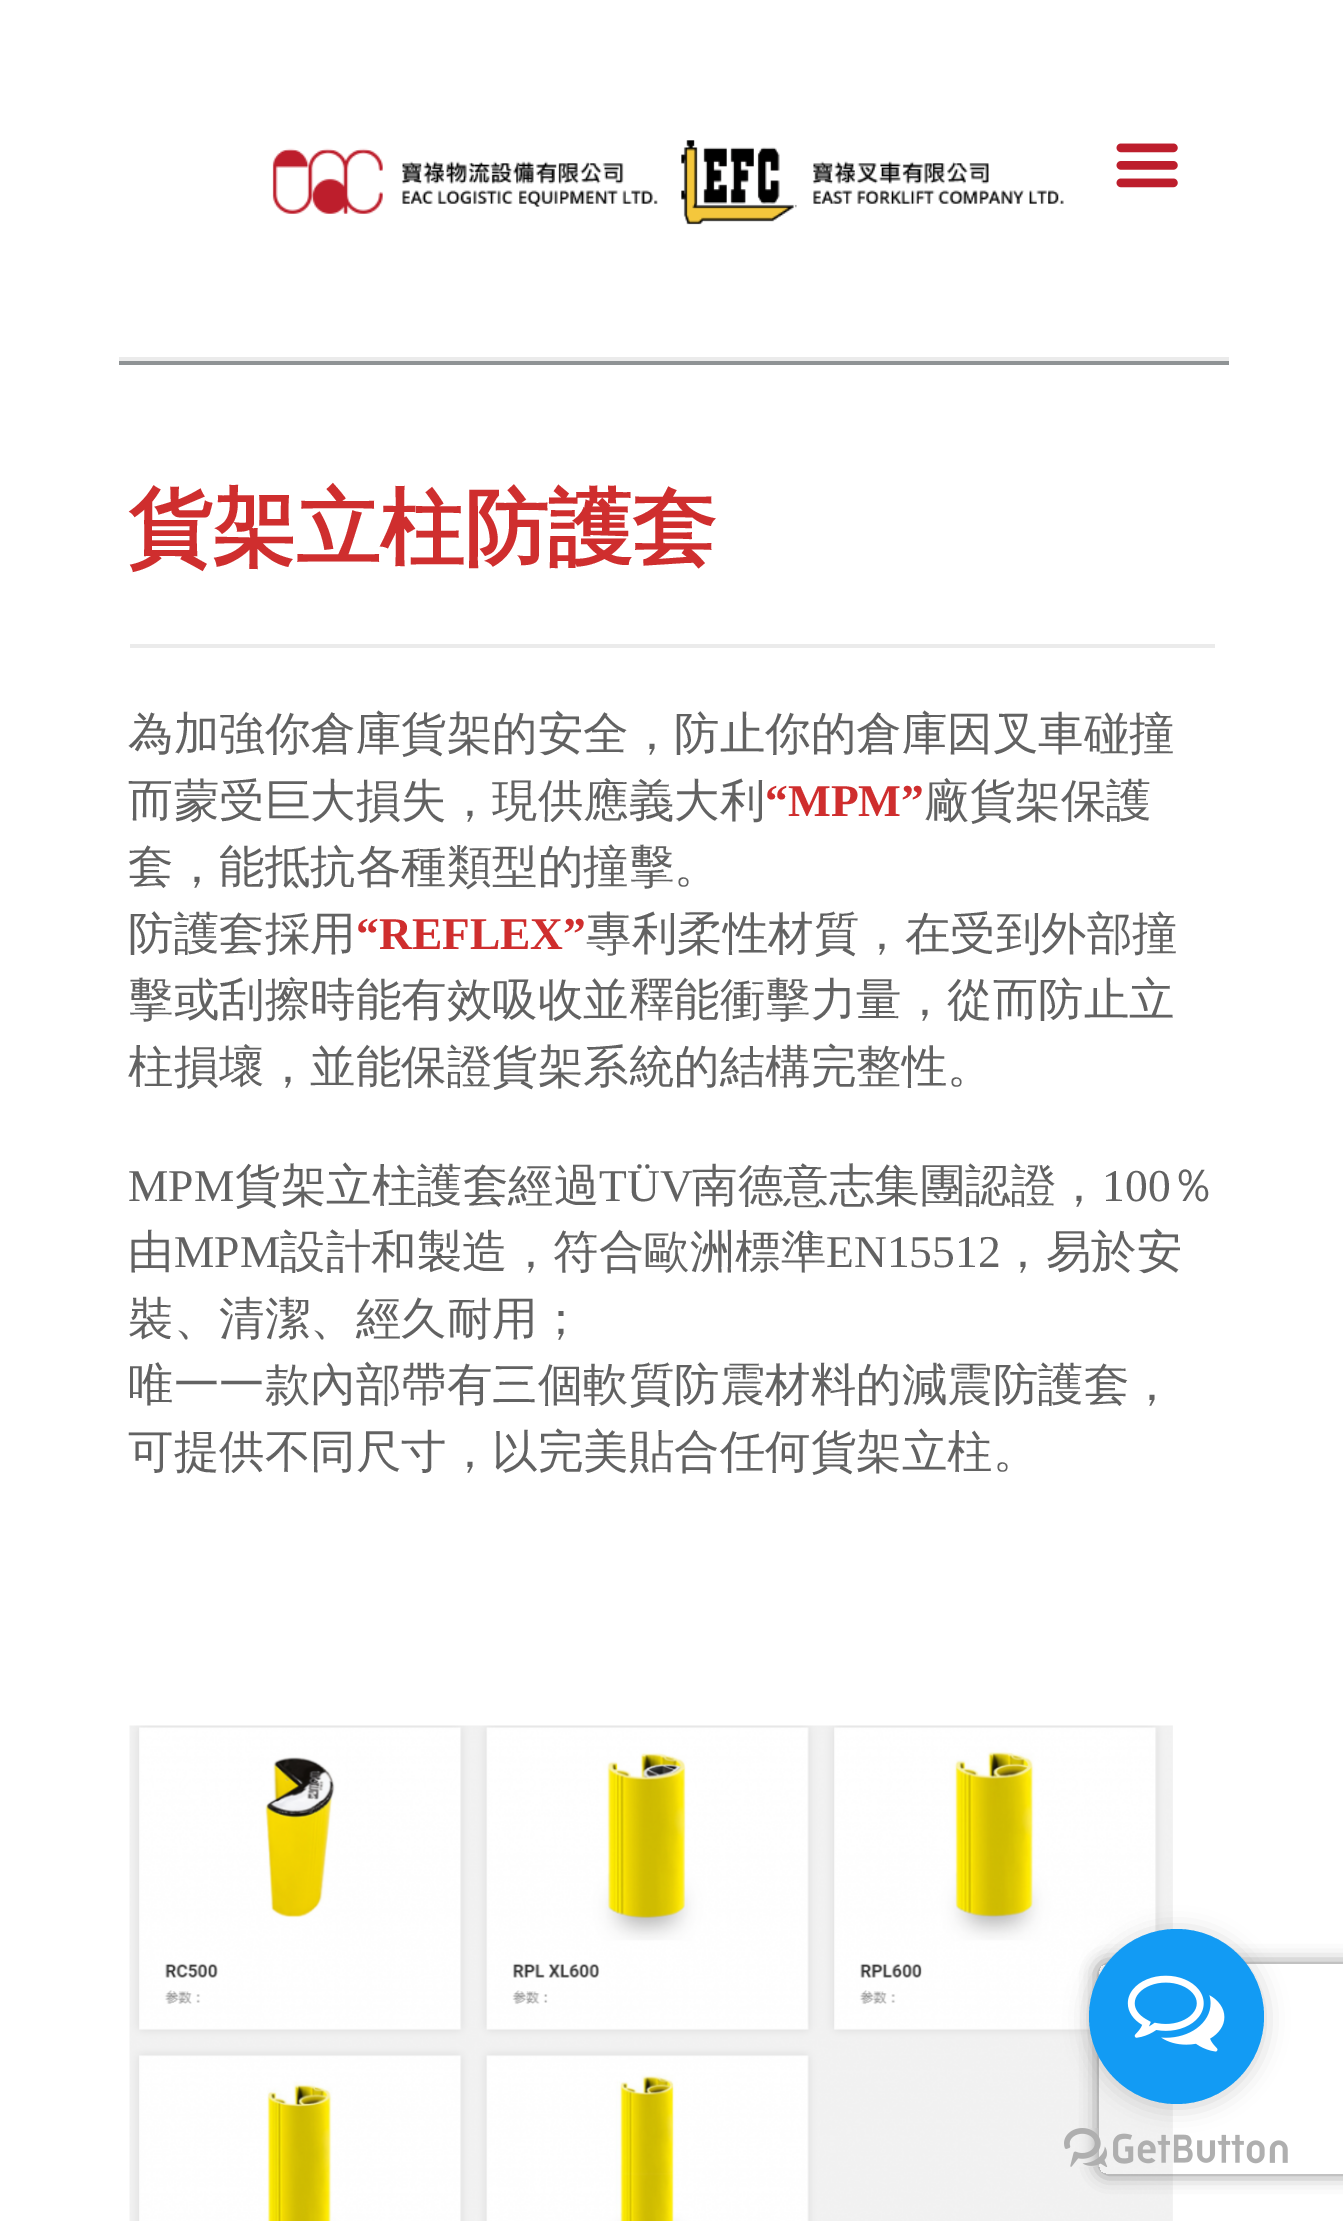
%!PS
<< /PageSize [1343 2221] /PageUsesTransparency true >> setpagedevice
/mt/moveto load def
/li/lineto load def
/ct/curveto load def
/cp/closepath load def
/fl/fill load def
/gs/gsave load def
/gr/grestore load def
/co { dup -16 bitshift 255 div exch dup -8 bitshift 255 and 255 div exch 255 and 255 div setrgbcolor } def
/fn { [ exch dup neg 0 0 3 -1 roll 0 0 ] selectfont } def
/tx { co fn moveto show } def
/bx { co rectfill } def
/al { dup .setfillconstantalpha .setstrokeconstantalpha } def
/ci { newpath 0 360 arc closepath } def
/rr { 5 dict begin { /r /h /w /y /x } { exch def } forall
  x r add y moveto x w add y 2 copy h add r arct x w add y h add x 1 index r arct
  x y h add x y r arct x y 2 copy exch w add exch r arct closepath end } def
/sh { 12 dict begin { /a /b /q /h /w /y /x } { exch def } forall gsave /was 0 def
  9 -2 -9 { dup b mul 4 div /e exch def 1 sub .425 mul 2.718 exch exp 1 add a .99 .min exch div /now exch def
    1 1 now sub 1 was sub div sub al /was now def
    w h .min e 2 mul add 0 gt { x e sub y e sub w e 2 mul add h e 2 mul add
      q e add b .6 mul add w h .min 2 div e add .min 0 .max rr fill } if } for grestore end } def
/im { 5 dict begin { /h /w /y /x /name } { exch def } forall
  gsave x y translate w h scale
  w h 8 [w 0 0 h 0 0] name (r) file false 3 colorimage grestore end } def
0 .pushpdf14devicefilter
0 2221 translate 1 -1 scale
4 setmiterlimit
0 0 1343 2221 16#FFFFFF bx
119 357 1110 4 16#EBEBEB bx
(media/1.raw) 272 140 792 85 im
119 361 1110 4 16#8F9395 bx
(media/2.raw) 1116 143 62 45 im
130 644 1085 4 16#EBEBEB bx
(media/3.raw) 129 1725 1044 496 im
gs
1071 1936 mt 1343 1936 li 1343 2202 li 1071 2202 li cp 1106 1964 mt 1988 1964 li 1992 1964 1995 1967 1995 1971 ct 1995 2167 li 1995 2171 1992 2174 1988 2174 ct 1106 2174 li 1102 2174 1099 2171 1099 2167 ct 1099 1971 li 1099 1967 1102 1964 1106 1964 ct cp eoclip newpath
16#808080 co
1099 1964 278 210 7 9 1 sh
gr
(media/5.raw) 1064 2128 224 39 im
16#888888 co
1089 1932 175 175 87.5 12 .4 sh
16#129BF4 co
1176.5 2016.5 87.5 ci fl
(media/4.raw) 1127 1975 98 77 im
(貨架立柱防護套) 128 557 /WenQuanYiZenHei-Bold 84 16#CF2E2E tx
(為加強你倉庫貨架的安全，防止你的倉庫因叉車碰撞) 128 749 /WenQuanYiZenHei-Medium 45.5 16#626262 tx
(而蒙受巨大損失，現供應義大利) 128 816 /WenQuanYiZenHei-Medium 45.5 16#626262 tx
(“MPM”) 765 816 /LiberationSerif-Bold 45.5 16#CF2E2E tx
(廠貨架保護) 924 816 /WenQuanYiZenHei-Medium 45.5 16#626262 tx
(套，能抵抗各種類型的撞擊。) 128 882 /WenQuanYiZenHei-Medium 45.5 16#626262 tx
(防護套採用) 128 949 /WenQuanYiZenHei-Medium 45.5 16#626262 tx
(“REFLEX”) 356 949 /LiberationSerif-Bold 45.5 16#CF2E2E tx
(專利柔性材質，在受到外部撞) 586 949 /WenQuanYiZenHei-Medium 45.5 16#626262 tx
(擊或刮擦時能有效吸收並釋能衝擊力量，從而防止立) 128 1015 /WenQuanYiZenHei-Medium 45.5 16#626262 tx
(柱損壞，並能保證貨架系統的結構完整性。) 128 1082 /WenQuanYiZenHei-Medium 45.5 16#626262 tx
(MPM) 128 1201 /LiberationSerif-Regular 45.5 16#626262 tx
(貨架立柱護套經過) 235 1201 /WenQuanYiZenHei-Medium 45.5 16#626262 tx
(TÜV) 599 1201 /LiberationSerif-Regular 45.5 16#626262 tx
(南德意志集團認證，) 692 1201 /WenQuanYiZenHei-Medium 45.5 16#626262 tx
(100) 1102 1201 /LiberationSerif-Regular 45.5 16#626262 tx
(％) 1170 1201 /WenQuanYiZenHei-Medium 45.5 16#626262 tx
(由) 128 1267 /WenQuanYiZenHei-Medium 45.5 16#626262 tx
(MPM) 174 1267 /LiberationSerif-Regular 45.5 16#626262 tx
(設計和製造，符合歐洲標準) 280 1267 /WenQuanYiZenHei-Medium 45.5 16#626262 tx
(EN15512) 826 1267 /LiberationSerif-Regular 45.5 16#626262 tx
(，易於安) 1000 1267 /WenQuanYiZenHei-Medium 45.5 16#626262 tx
(裝、清潔、經久耐用；) 128 1334 /WenQuanYiZenHei-Medium 45.5 16#626262 tx
(唯一一款內部帶有三個軟質防震材料的減震防護套，) 128 1400 /WenQuanYiZenHei-Medium 45.5 16#626262 tx
(可提供不同尺寸，以完美貼合任何貨架立柱。) 128 1467 /WenQuanYiZenHei-Medium 45.5 16#626262 tx
.poppdf14devicefilter showpage
